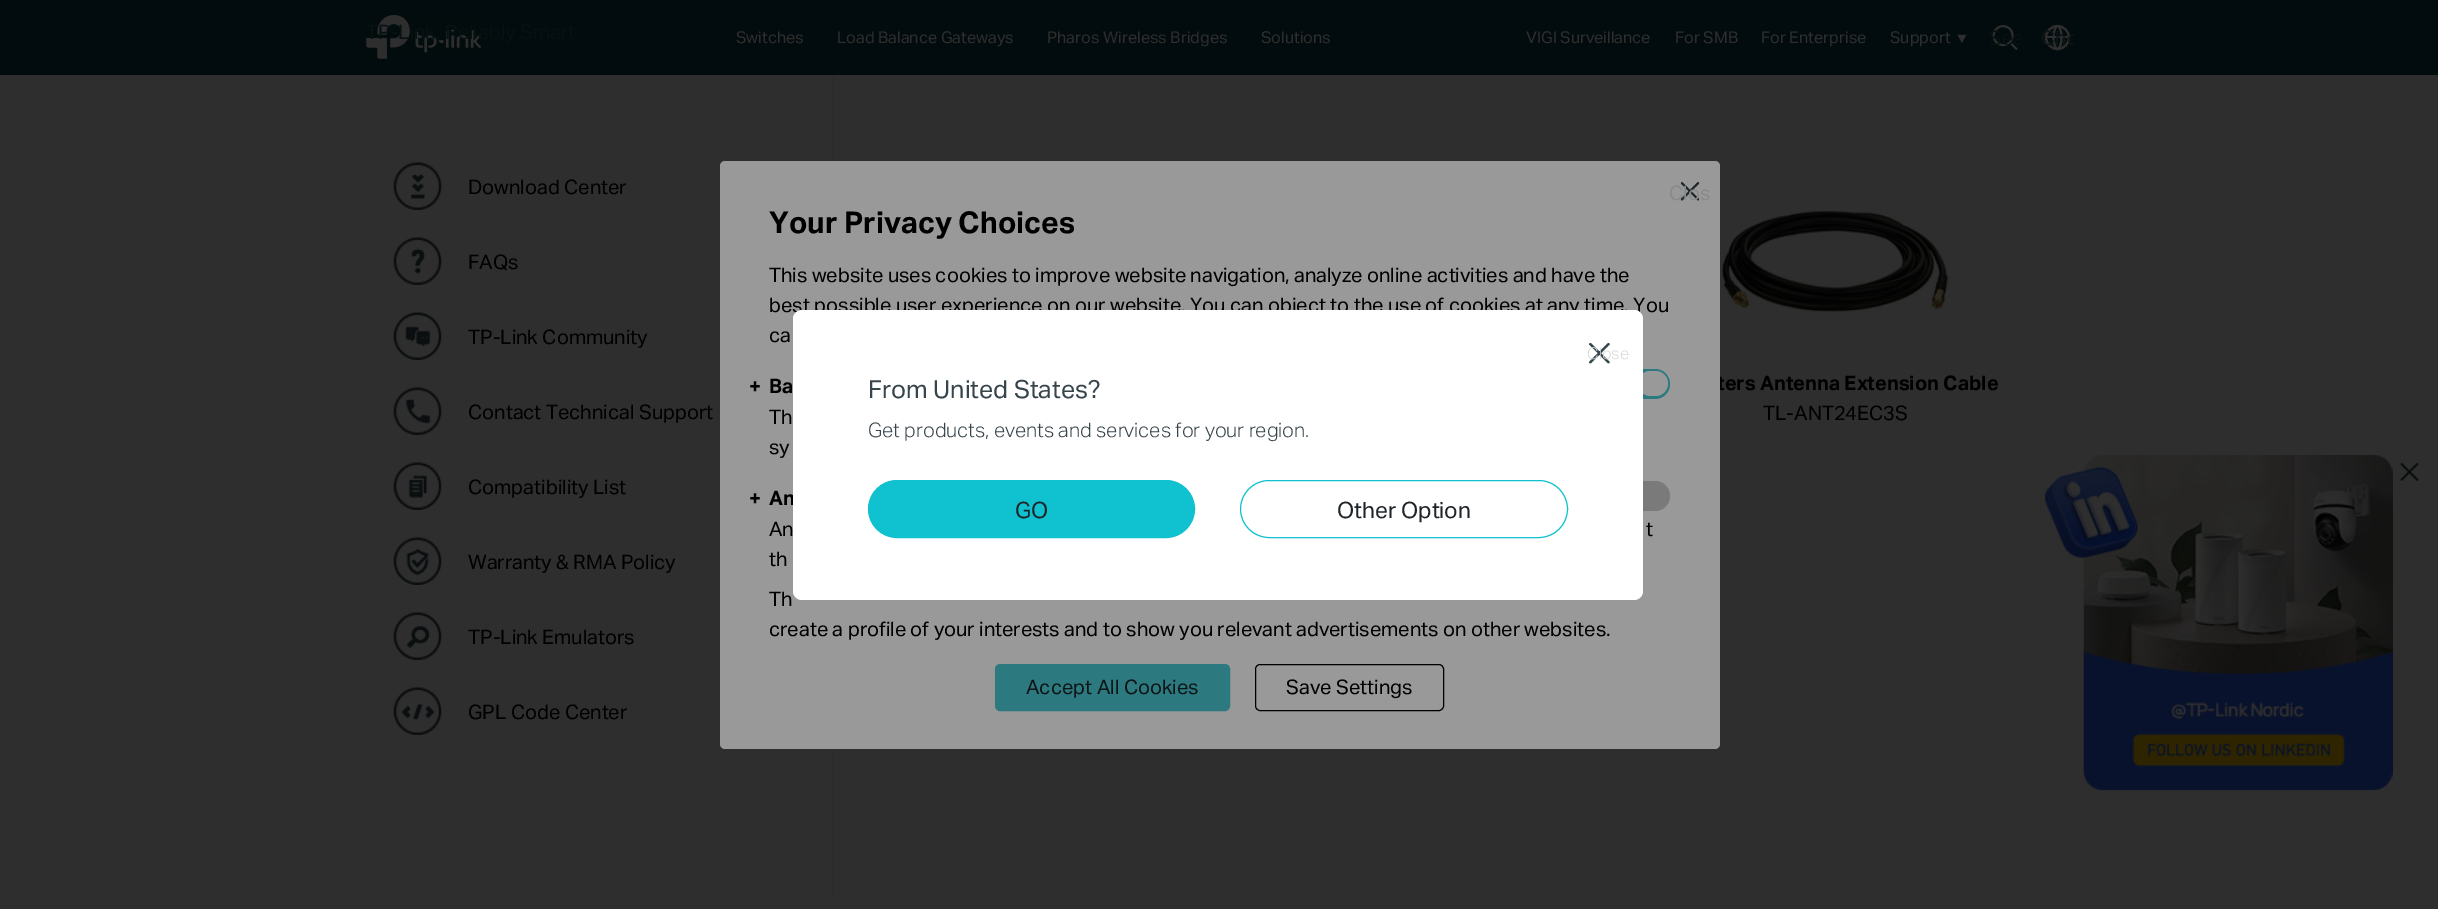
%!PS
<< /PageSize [2438 909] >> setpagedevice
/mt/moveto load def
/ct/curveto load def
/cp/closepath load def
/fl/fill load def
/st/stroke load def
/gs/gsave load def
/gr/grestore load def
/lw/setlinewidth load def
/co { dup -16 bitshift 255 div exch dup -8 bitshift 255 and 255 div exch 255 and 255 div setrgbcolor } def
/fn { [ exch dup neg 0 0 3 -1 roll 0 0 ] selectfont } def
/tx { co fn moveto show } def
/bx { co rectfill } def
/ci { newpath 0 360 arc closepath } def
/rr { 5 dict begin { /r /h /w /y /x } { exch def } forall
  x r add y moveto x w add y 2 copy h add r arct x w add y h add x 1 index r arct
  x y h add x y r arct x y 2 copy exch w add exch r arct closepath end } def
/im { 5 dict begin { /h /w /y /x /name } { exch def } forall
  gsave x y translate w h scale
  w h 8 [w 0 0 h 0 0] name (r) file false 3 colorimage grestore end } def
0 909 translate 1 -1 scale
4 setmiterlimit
0 0 2438 909 16#2E2E2E bx
0 0 2438 75 16#020B0D bx
(media/1.raw) 366 15 115 44 im
(media/2.raw) 1957 34 10 9 im
(media/3.raw) 1992 25 26 25 im
16#2E2E2E co
2.1 lw
2057.5 37.5 11.5 ci st
2057.5 26 mt 2059.5 26 2061.5 31 2061.5 37.5 ct 2061.5 44 2059.5 49 2057.5 49 ct 2055.5 49 2053.5 44 2053.5 37.5 ct 2053.5 31 2055.5 26 2057.5 26 ct cp st
2047 36 22 2 16#2E2E2E bx
(media/4.raw) 393 162 49 48 im
(media/5.raw) 393 237 49 48 im
(media/6.raw) 393 312 49 48 im
(media/7.raw) 393 387 49 48 im
(media/8.raw) 393 462 49 48 im
(media/9.raw) 393 537 49 48 im
(media/10.raw) 393 612 49 48 im
(media/11.raw) 393 687 49 48 im
833 75 1 821 16#292929 bx
(media/12.raw) 1722 211 226 101 im
(media/15.raw) 2045 455 348 336 im
(media/16.raw) 2400 463 19 18 im
(TP-Link, Reliably Smart) 366 39 /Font-Regular 20 16#081112 tx
(Switches) 736 43 /Font-Regular 16.25 16#2E2E2E tx
(Load Balance Gateways) 837 43 /Font-Regular 16.25 16#2E2E2E tx
(Pharos Wireless Bridges) 1047 43 /Font-Regular 16.25 16#2E2E2E tx
(Solutions) 1261 43 /Font-Regular 16.25 16#2E2E2E tx
(VIGI Surveillance) 1526 43 /Font-Regular 16.25 16#2E2E2E tx
(For SMB) 1675 43 /Font-Regular 16.25 16#2E2E2E tx
(For Enterprise) 1761 43 /Font-Regular 16.25 16#2E2E2E tx
(Support) 1890 43 /Font-Regular 16.25 16#2E2E2E tx
gs
1989 21 32 33 rectclip
(Sea) 1989 45 /Font-Regular 20 16#081112 tx
gr
gs
2041 21 33 33 rectclip
(Cho) 2041 45 /Font-Regular 20 16#0E1516 tx
gr
(Download Center) 468 194 /Font-Regular 20 16#000000 tx
(FAQs) 468 269 /Font-Regular 20 16#000000 tx
(TP-Link Community) 468 344 /Font-Regular 20 16#000000 tx
(Contact Technical Support) 468 419 /Font-Regular 20 16#000000 tx
(Compatibility List) 468 494 /Font-Regular 20 16#000000 tx
(Warranty & RMA Policy) 468 569 /Font-Regular 20 16#000000 tx
(TP-Link Emulators) 468 644 /Font-Regular 20 16#000000 tx
(GPL Code Center) 468 719 /Font-Regular 20 16#000000 tx
(ters Antenna Extension Cable) 1717 390 /Font-Bold 20 16#000000 tx
(TL-ANT24EC3S) 1763 420 /Font-Regular 20 16#000000 tx
16#999999 co
720 161 1000 588 5 rr fl
(media/14.raw) 1680 181 20 20 im
(Clos) 1669 200 /Font-Regular 20 16#898A8B tx
(Your Privacy Choices) 769 233 /Font-Bold 30 16#000000 tx
(This website uses cookies to improve website navigation, analyze online activities and have the) 769 282 /Font-Regular 20 16#000000 tx
(best possible user experience on our website. You can object to the use of cookies at any time. You) 769 312 /Font-Regular 20 16#000000 tx
(ca) 769 342 /Font-Regular 20 16#000000 tx
(+) 749 393 /Font-Bold 20 16#000000 tx
(Ba) 769 393 /Font-Bold 20 16#000000 tx
16#2C7A80 co
1610 369 60 30 15 rr fl
16#999999 co
1638 371 30 25 12.5 rr fl
(Th) 769 424 /Font-Regular 20 16#000000 tx
(sy) 769 454 /Font-Regular 20 16#000000 tx
(+) 749 505 /Font-Bold 20 16#000000 tx
(An) 769 505 /Font-Bold 20 16#000000 tx
16#7A7A7A co
1610 481 60 30 15 rr fl
16#FFFFFF co
793 310 850 290 9 rr fl
(media/13.raw) 1588 342 22 22 im
(Close) 1587 359 /Font-Light 16.25 16#D6D9DA tx
16#10C1D0 co
1 lw
1240.5 480.5 327 57 28.5 rr st
(Other Option) 1337 518 /Font-Regular 22.5 16#1D2529 tx
16#10C1D0 co
868.5 480.5 326 57 28.5 rr gs fl gr
st
(GO) 1015 518 /Font-Regular 22.5 16#1D2529 tx
(Get products, events and services for your region.) 868 437 /Font-Light 20 16#36444B tx
(From United States?) 868 398 /Font-Regular 25 16#36444B tx
(An) 769 536 /Font-Regular 20 16#000000 tx
(t) 1646 536 /Font-Regular 20 16#000000 tx
(th) 769 566 /Font-Regular 20 16#000000 tx
(Th) 769 606 /Font-Regular 20 16#000000 tx
(create a profile of your interests and to show you relevant advertisements on other websites.) 769 636 /Font-Regular 20 16#000000 tx
16#2C7A80 co
995.5 664.5 234 46 4.5 rr gs fl gr
st
(Accept All Cookies) 1026 694 /Font-Regular 20 16#0E1516 tx
16#000000 co
1255.5 664.5 188 46 4.5 rr st
(Save Settings) 1286 694 /Font-Regular 20 16#000000 tx
showpage
